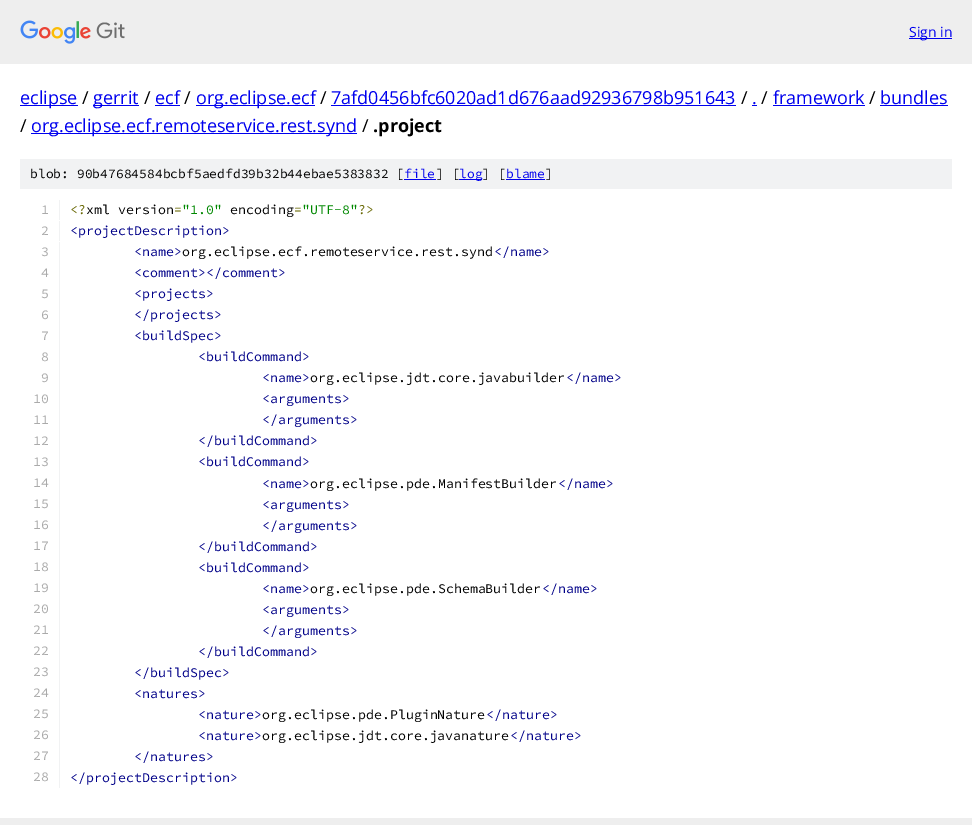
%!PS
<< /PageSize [972 825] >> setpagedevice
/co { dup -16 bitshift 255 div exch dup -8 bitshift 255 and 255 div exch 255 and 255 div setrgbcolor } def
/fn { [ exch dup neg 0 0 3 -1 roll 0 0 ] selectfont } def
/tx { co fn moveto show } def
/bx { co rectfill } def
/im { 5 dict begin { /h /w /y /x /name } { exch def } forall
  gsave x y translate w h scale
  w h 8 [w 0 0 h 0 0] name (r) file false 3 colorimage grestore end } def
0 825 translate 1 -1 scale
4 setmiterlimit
0 0 972 825 16#FFFFFF bx
0 0 972 64 16#EEEEEE bx
(media/1.raw) 20 20 105 24 im
909 38 43 1 16#0000EE bx
20 105 58 1 16#0000EE bx
93 105 46 1 16#0000EE bx
155 105 25 1 16#0000EE bx
196 105 119 1 16#0000EE bx
331 105 405 1 16#0000EE bx
752 105 5 1 16#0000EE bx
773 105 92 1 16#0000EE bx
880 105 68 1 16#0000EE bx
31 133 326 1 16#0000EE bx
20 159 932 30 16#F1F2F3 bx
404 179 32 1 16#0000EE bx
459 179 23 1 16#0000EE bx
506 179 39 1 16#0000EE bx
59 200 1 20 16#F1F2F3 bx
59 221 1 20 16#F1F2F3 bx
59 242 1 546 16#F1F2F3 bx
0 818 972 7 16#EEEEEE bx
(Sign in) 909 37 /OpenSans-Regular 14 16#0000EE tx
(eclipse) 20 104 /OpenSans-Regular 18 16#0000EE tx
(/) 82 104 /OpenSans-Regular 18 16#000000 tx
(gerrit) 93 104 /OpenSans-Regular 18 16#0000EE tx
(/) 144 104 /OpenSans-Regular 18 16#000000 tx
(ecf) 155 104 /OpenSans-Regular 18 16#0000EE tx
(/) 184 104 /OpenSans-Regular 18 16#000000 tx
(org.eclipse.ecf) 196 104 /OpenSans-Regular 18 16#0000EE tx
(/) 320 104 /OpenSans-Regular 18 16#000000 tx
(7afd0456bfc6020ad1d676aad92936798b951643) 331 104 /OpenSans-Regular 18 16#0000EE tx
(/) 741 104 /OpenSans-Regular 18 16#000000 tx
(.) 752 104 /OpenSans-Regular 18 16#0000EE tx
(/) 761 104 /OpenSans-Regular 18 16#000000 tx
(framework) 773 104 /OpenSans-Regular 18 16#0000EE tx
(/) 869 104 /OpenSans-Regular 18 16#000000 tx
(bundles) 880 104 /OpenSans-Regular 18 16#0000EE tx
(/) 20 132 /OpenSans-Regular 18 16#000000 tx
(org.eclipse.ecf.remoteservice.rest.synd) 31 132 /OpenSans-Regular 18 16#0000EE tx
(/) 362 132 /OpenSans-Regular 18 16#000000 tx
(.project) 373 132 /OpenSans-Bold 18 16#000000 tx
(blob: 90b47684584bcbf5aedfd39b32b44ebae5383832 [) 30 178 /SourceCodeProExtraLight-ExtraLight 13 16#000000 tx
(file) 404 178 /SourceCodeProExtraLight-ExtraLight 13 16#0000EE tx
(] [) 436 178 /SourceCodeProExtraLight-ExtraLight 13 16#000000 tx
(log) 459 178 /SourceCodeProExtraLight-ExtraLight 13 16#0000EE tx
(] [) 482 178 /SourceCodeProExtraLight-ExtraLight 13 16#000000 tx
(blame) 506 178 /SourceCodeProExtraLight-ExtraLight 13 16#0000EE tx
(]) 545 178 /SourceCodeProExtraLight-ExtraLight 13 16#000000 tx
(1) 41 214 /SourceCodeProExtraLight-ExtraLight 13.3 16#AAAAAA tx
(<?) 70 214 /SourceCodeProExtraLight-ExtraLight 13.3 16#666600 tx
(xml version) 86 214 /SourceCodeProExtraLight-ExtraLight 13.3 16#000000 tx
(=) 174 214 /SourceCodeProExtraLight-ExtraLight 13.3 16#666600 tx
("1.0") 182 214 /SourceCodeProExtraLight-ExtraLight 13.3 16#008800 tx
(encoding) 230 214 /SourceCodeProExtraLight-ExtraLight 13.3 16#000000 tx
(=) 294 214 /SourceCodeProExtraLight-ExtraLight 13.3 16#666600 tx
("UTF-8") 302 214 /SourceCodeProExtraLight-ExtraLight 13.3 16#008800 tx
(?>) 358 214 /SourceCodeProExtraLight-ExtraLight 13.3 16#666600 tx
(2) 41 235 /SourceCodeProExtraLight-ExtraLight 13.3 16#AAAAAA tx
(<projectDescription>) 70 235 /SourceCodeProExtraLight-ExtraLight 13.3 16#000088 tx
(3) 41 256 /SourceCodeProExtraLight-ExtraLight 13.3 16#AAAAAA tx
(<name>) 134 256 /SourceCodeProExtraLight-ExtraLight 13.3 16#000088 tx
(org.eclipse.ecf.remoteservice.rest.synd) 182 256 /SourceCodeProExtraLight-ExtraLight 13.3 16#000000 tx
(</name>) 494 256 /SourceCodeProExtraLight-ExtraLight 13.3 16#000088 tx
(4) 41 277 /SourceCodeProExtraLight-ExtraLight 13.3 16#AAAAAA tx
(<comment></comment>) 134 277 /SourceCodeProExtraLight-ExtraLight 13.3 16#000088 tx
(5) 41 298 /SourceCodeProExtraLight-ExtraLight 13.3 16#AAAAAA tx
(<projects>) 134 298 /SourceCodeProExtraLight-ExtraLight 13.3 16#000088 tx
(6) 41 319 /SourceCodeProExtraLight-ExtraLight 13.3 16#AAAAAA tx
(</projects>) 134 319 /SourceCodeProExtraLight-ExtraLight 13.3 16#000088 tx
(7) 41 340 /SourceCodeProExtraLight-ExtraLight 13.3 16#AAAAAA tx
(<buildSpec>) 134 340 /SourceCodeProExtraLight-ExtraLight 13.3 16#000088 tx
(8) 41 361 /SourceCodeProExtraLight-ExtraLight 13.3 16#AAAAAA tx
(<buildCommand>) 198 361 /SourceCodeProExtraLight-ExtraLight 13.3 16#000088 tx
(9) 41 382 /SourceCodeProExtraLight-ExtraLight 13.3 16#AAAAAA tx
(<name>) 262 382 /SourceCodeProExtraLight-ExtraLight 13.3 16#000088 tx
(org.eclipse.jdt.core.javabuilder) 310 382 /SourceCodeProExtraLight-ExtraLight 13.3 16#000000 tx
(</name>) 566 382 /SourceCodeProExtraLight-ExtraLight 13.3 16#000088 tx
(10) 33 403 /SourceCodeProExtraLight-ExtraLight 13.3 16#AAAAAA tx
(<arguments>) 262 403 /SourceCodeProExtraLight-ExtraLight 13.3 16#000088 tx
(11) 33 424 /SourceCodeProExtraLight-ExtraLight 13.3 16#AAAAAA tx
(</arguments>) 262 424 /SourceCodeProExtraLight-ExtraLight 13.3 16#000088 tx
(12) 33 445 /SourceCodeProExtraLight-ExtraLight 13.3 16#AAAAAA tx
(</buildCommand>) 198 445 /SourceCodeProExtraLight-ExtraLight 13.3 16#000088 tx
(13) 33 466 /SourceCodeProExtraLight-ExtraLight 13.3 16#AAAAAA tx
(<buildCommand>) 198 466 /SourceCodeProExtraLight-ExtraLight 13.3 16#000088 tx
(14) 33 487 /SourceCodeProExtraLight-ExtraLight 13.3 16#AAAAAA tx
(<name>) 262 488 /SourceCodeProExtraLight-ExtraLight 13.3 16#000088 tx
(org.eclipse.pde.ManifestBuilder) 310 488 /SourceCodeProExtraLight-ExtraLight 13.3 16#000000 tx
(</name>) 558 488 /SourceCodeProExtraLight-ExtraLight 13.3 16#000088 tx
(15) 33 508 /SourceCodeProExtraLight-ExtraLight 13.3 16#AAAAAA tx
(<arguments>) 262 509 /SourceCodeProExtraLight-ExtraLight 13.3 16#000088 tx
(16) 33 529 /SourceCodeProExtraLight-ExtraLight 13.3 16#AAAAAA tx
(</arguments>) 262 530 /SourceCodeProExtraLight-ExtraLight 13.3 16#000088 tx
(17) 33 550 /SourceCodeProExtraLight-ExtraLight 13.3 16#AAAAAA tx
(</buildCommand>) 198 551 /SourceCodeProExtraLight-ExtraLight 13.3 16#000088 tx
(18) 33 571 /SourceCodeProExtraLight-ExtraLight 13.3 16#AAAAAA tx
(<buildCommand>) 198 572 /SourceCodeProExtraLight-ExtraLight 13.3 16#000088 tx
(19) 33 592 /SourceCodeProExtraLight-ExtraLight 13.3 16#AAAAAA tx
(<name>) 262 593 /SourceCodeProExtraLight-ExtraLight 13.3 16#000088 tx
(org.eclipse.pde.SchemaBuilder) 310 593 /SourceCodeProExtraLight-ExtraLight 13.3 16#000000 tx
(</name>) 542 593 /SourceCodeProExtraLight-ExtraLight 13.3 16#000088 tx
(20) 33 613 /SourceCodeProExtraLight-ExtraLight 13.3 16#AAAAAA tx
(<arguments>) 262 614 /SourceCodeProExtraLight-ExtraLight 13.3 16#000088 tx
(21) 33 634 /SourceCodeProExtraLight-ExtraLight 13.3 16#AAAAAA tx
(</arguments>) 262 635 /SourceCodeProExtraLight-ExtraLight 13.3 16#000088 tx
(22) 33 655 /SourceCodeProExtraLight-ExtraLight 13.3 16#AAAAAA tx
(</buildCommand>) 198 656 /SourceCodeProExtraLight-ExtraLight 13.3 16#000088 tx
(23) 33 676 /SourceCodeProExtraLight-ExtraLight 13.3 16#AAAAAA tx
(</buildSpec>) 134 677 /SourceCodeProExtraLight-ExtraLight 13.3 16#000088 tx
(24) 33 697 /SourceCodeProExtraLight-ExtraLight 13.3 16#AAAAAA tx
(<natures>) 134 698 /SourceCodeProExtraLight-ExtraLight 13.3 16#000088 tx
(25) 33 718 /SourceCodeProExtraLight-ExtraLight 13.3 16#AAAAAA tx
(<nature>) 198 719 /SourceCodeProExtraLight-ExtraLight 13.3 16#000088 tx
(org.eclipse.pde.PluginNature) 262 719 /SourceCodeProExtraLight-ExtraLight 13.3 16#000000 tx
(</nature>) 486 719 /SourceCodeProExtraLight-ExtraLight 13.3 16#000088 tx
(26) 33 739 /SourceCodeProExtraLight-ExtraLight 13.3 16#AAAAAA tx
(<nature>) 198 740 /SourceCodeProExtraLight-ExtraLight 13.3 16#000088 tx
(org.eclipse.jdt.core.javanature) 262 740 /SourceCodeProExtraLight-ExtraLight 13.3 16#000000 tx
(</nature>) 510 740 /SourceCodeProExtraLight-ExtraLight 13.3 16#000088 tx
(27) 33 760 /SourceCodeProExtraLight-ExtraLight 13.3 16#AAAAAA tx
(</natures>) 134 761 /SourceCodeProExtraLight-ExtraLight 13.3 16#000088 tx
(28) 33 781 /SourceCodeProExtraLight-ExtraLight 13.3 16#AAAAAA tx
(</projectDescription>) 70 782 /SourceCodeProExtraLight-ExtraLight 13.3 16#000088 tx
showpage
